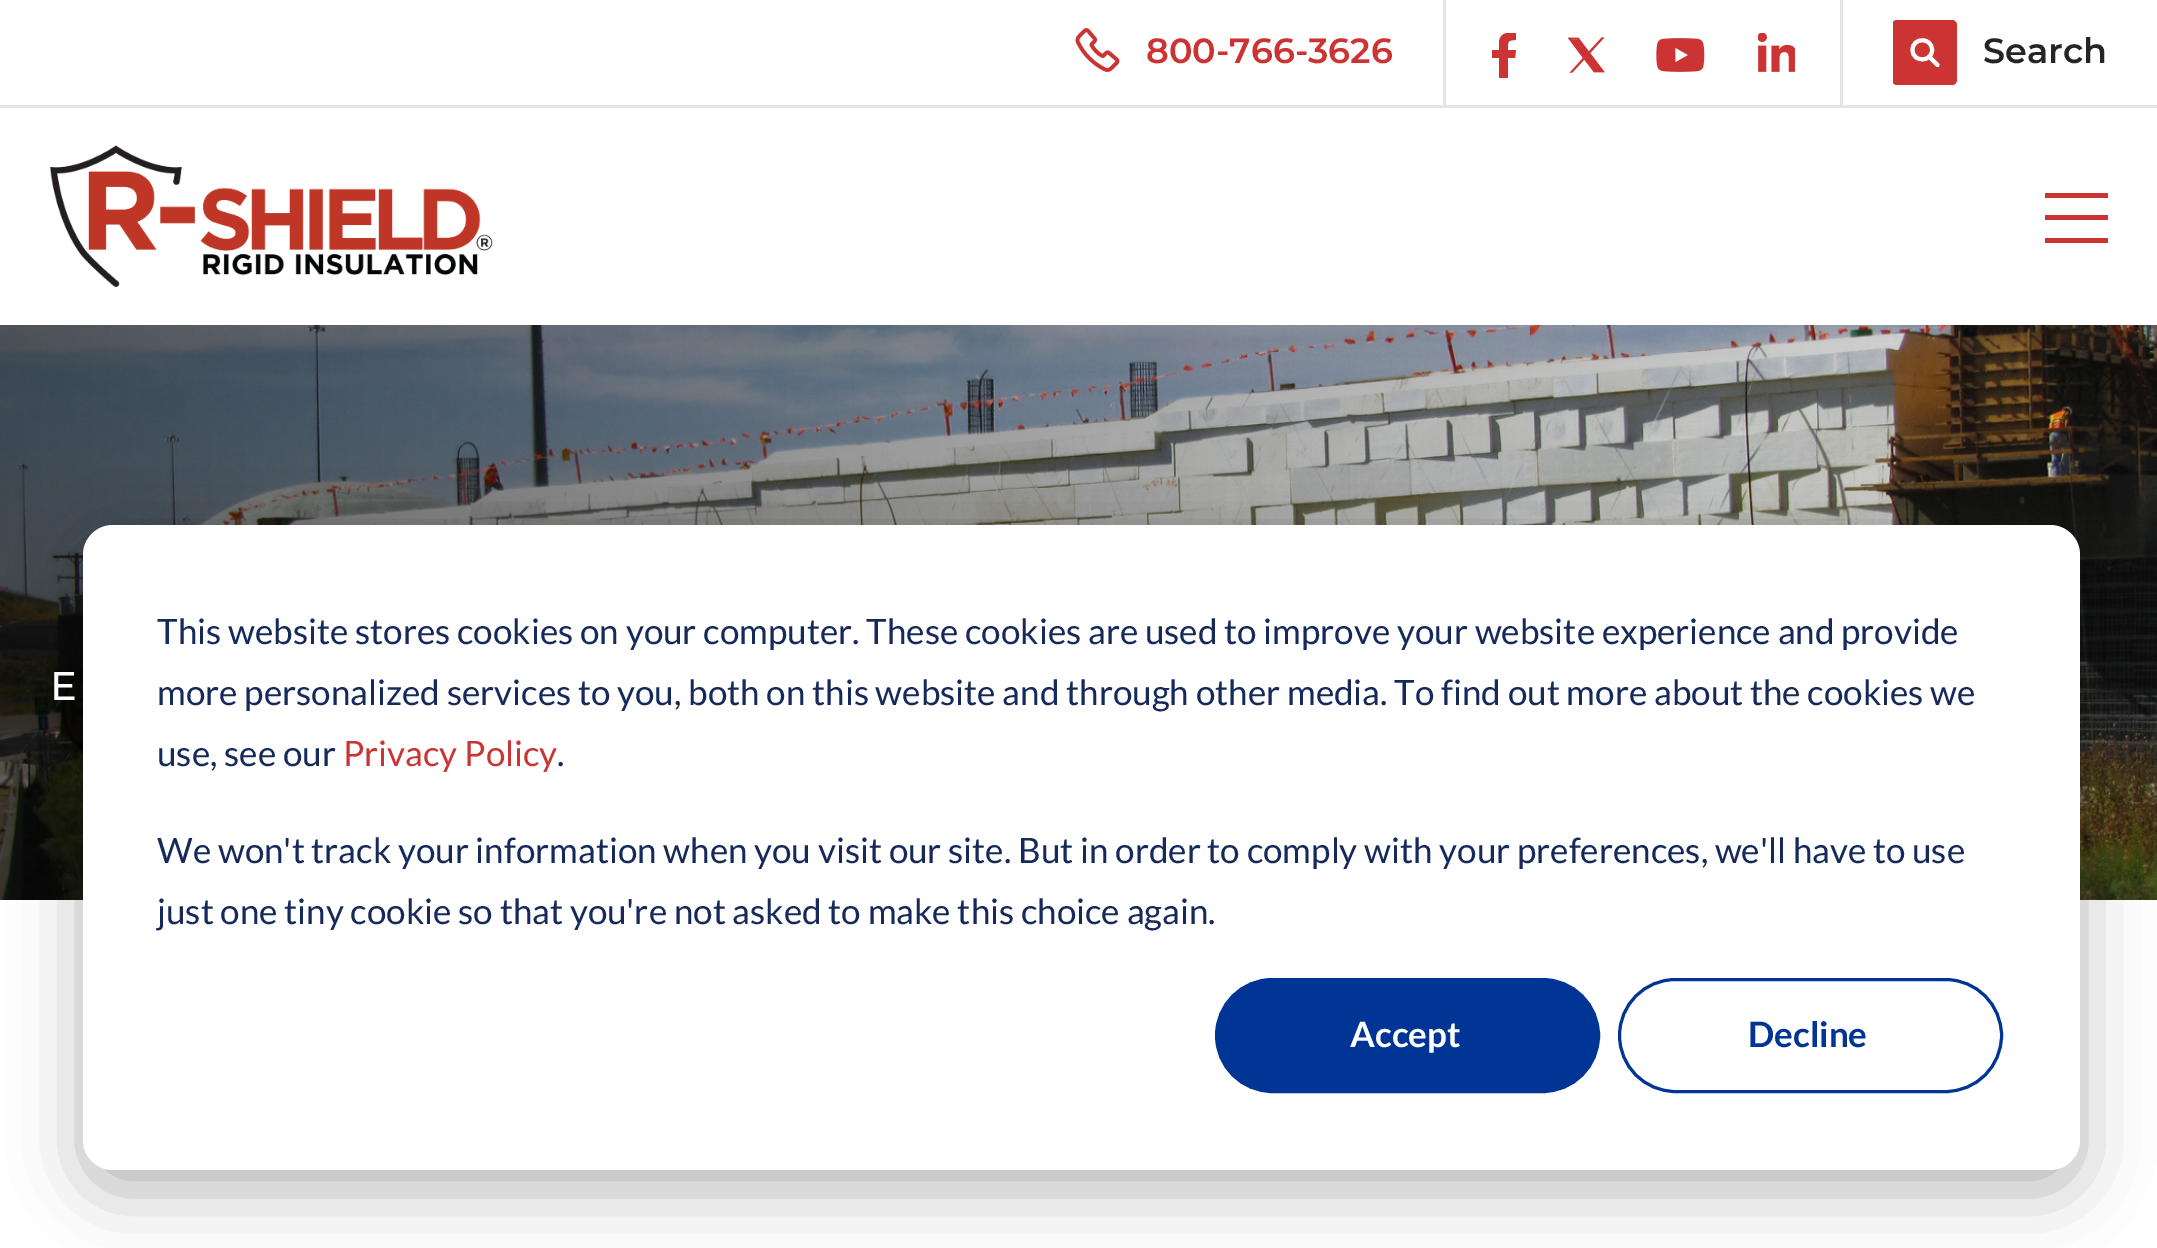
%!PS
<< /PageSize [2157 1248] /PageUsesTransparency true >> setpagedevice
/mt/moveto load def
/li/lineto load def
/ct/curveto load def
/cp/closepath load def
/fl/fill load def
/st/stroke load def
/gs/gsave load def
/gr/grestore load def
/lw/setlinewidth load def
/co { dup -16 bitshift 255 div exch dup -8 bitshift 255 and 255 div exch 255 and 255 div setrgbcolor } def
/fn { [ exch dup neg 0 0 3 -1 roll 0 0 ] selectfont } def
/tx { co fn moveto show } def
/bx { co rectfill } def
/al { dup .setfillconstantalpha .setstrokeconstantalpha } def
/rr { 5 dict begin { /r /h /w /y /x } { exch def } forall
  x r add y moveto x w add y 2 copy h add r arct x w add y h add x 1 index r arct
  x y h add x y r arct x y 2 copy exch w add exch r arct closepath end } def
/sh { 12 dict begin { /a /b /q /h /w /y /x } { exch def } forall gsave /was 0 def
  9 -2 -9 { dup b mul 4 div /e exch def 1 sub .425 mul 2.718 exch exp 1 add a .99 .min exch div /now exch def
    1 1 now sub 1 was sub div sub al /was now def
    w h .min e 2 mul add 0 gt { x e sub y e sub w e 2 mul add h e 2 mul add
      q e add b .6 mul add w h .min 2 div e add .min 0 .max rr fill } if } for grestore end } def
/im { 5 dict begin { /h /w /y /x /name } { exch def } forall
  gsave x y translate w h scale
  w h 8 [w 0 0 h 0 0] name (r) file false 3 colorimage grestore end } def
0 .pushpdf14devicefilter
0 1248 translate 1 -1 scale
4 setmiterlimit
0 0 2157 1248 16#FFFFFF bx
(media/6.raw) 0 325 2157 575 im
16#000000 co
0 25 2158 325 0 31 .05 sh
0 0 2157 325 16#FFFFFF bx
0 105 2157 3 16#E4E4E4 bx
1443 0 3 105 16#E4E4E4 bx
(media/1.raw) 1075 28 45 44 im
1840 0 3 105 16#E4E4E4 bx
gs
1490 33 28 45 rectclip
16#CC3333 co
1515 58 mt 1516 50 li 1508 50 li 1508 42 1507 40 1516 40 ct 1516 33 li 1509 32 1501 32 1499 41 ct 1499 50 li 1492 50 li 1492 58 li 1499 58 li 1499 78 li 1508 78 li 1508 58 li cp fl
gr
(media/2.raw) 1568 37 37 36 im
(media/3.raw) 1656 38 49 34 im
(media/4.raw) 1758 33 37 39 im
gs
1893 20 65 65 rectclip
16#CC3333 co
1892 20 65 65 5 rr fl
gr
16#FFFFFF co
4 lw
1 setlinecap
1937.5 65 mt 1929 56.5 li 1932 50 mt 1932 62.5 1912.5 62.5 1912.5 50 ct 1912.5 37 1932 37 1932 50 ct cp st
(media/5.raw) 50 145 443 143 im
2045 193 63 5 16#CC3333 bx
2045 215 63 5 16#CC3333 bx
2045 238 63 5 16#CC3333 bx
gs
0 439 mt 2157 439 li 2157 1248 li 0 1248 li cp 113 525 mt 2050 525 li 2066.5 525 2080 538.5 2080 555 ct 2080 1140 li 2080 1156.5 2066.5 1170 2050 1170 ct 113 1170 li 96.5 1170 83 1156.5 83 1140 ct 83 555 li 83 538.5 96.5 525 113 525 ct cp eoclip newpath
16#000000 co
83 545 1997 645 30 35 .28 sh
gr
16#FFFFFF co
83 525 1997 645 30 rr fl
16#003595 co
1216.5 979.5 382 112 56 rr gs fl gr
3 lw
0 setlinecap
st
1619.5 979.5 382 112 56 rr st
(800-766-3626) 1146 63 /Montserrat-SemiBold 35 16#CC3333 tx
(Search) 1983 63 /Montserrat-SemiBold 35 16#252525 tx
(E) 50 700 /Montserrat-Medium 40 16#FFFFFF tx
(This website stores cookies on your computer. These cookies are used to improve your website experience and provide) 157 644 /Lato-Regular 35 16#15295A tx
(more personalized services to you, both on this website and through other media. To find out more about the cookies we) 157 705 /Lato-Regular 35 16#15295A tx
(use, see our) 157 766 /Lato-Regular 35 16#15295A tx
(Privacy Policy) 343 766 /Lato-Regular 35 16#CC3333 tx
(.) 557 766 /Lato-Regular 35 16#15295A tx
(We won't track your information when you visit our site. But in order to comply with your preferences, we'll have to use) 157 863 /Lato-Regular 35 16#15295A tx
(just one tiny cookie so that you're not asked to make this choice again.) 157 924 /Lato-Regular 35 16#15295A tx
(Accept) 1350 1047 /Lato-Bold 35 16#FFFFFF tx
(Decline) 1748 1047 /Lato-Bold 35 16#003595 tx
.poppdf14devicefilter showpage
